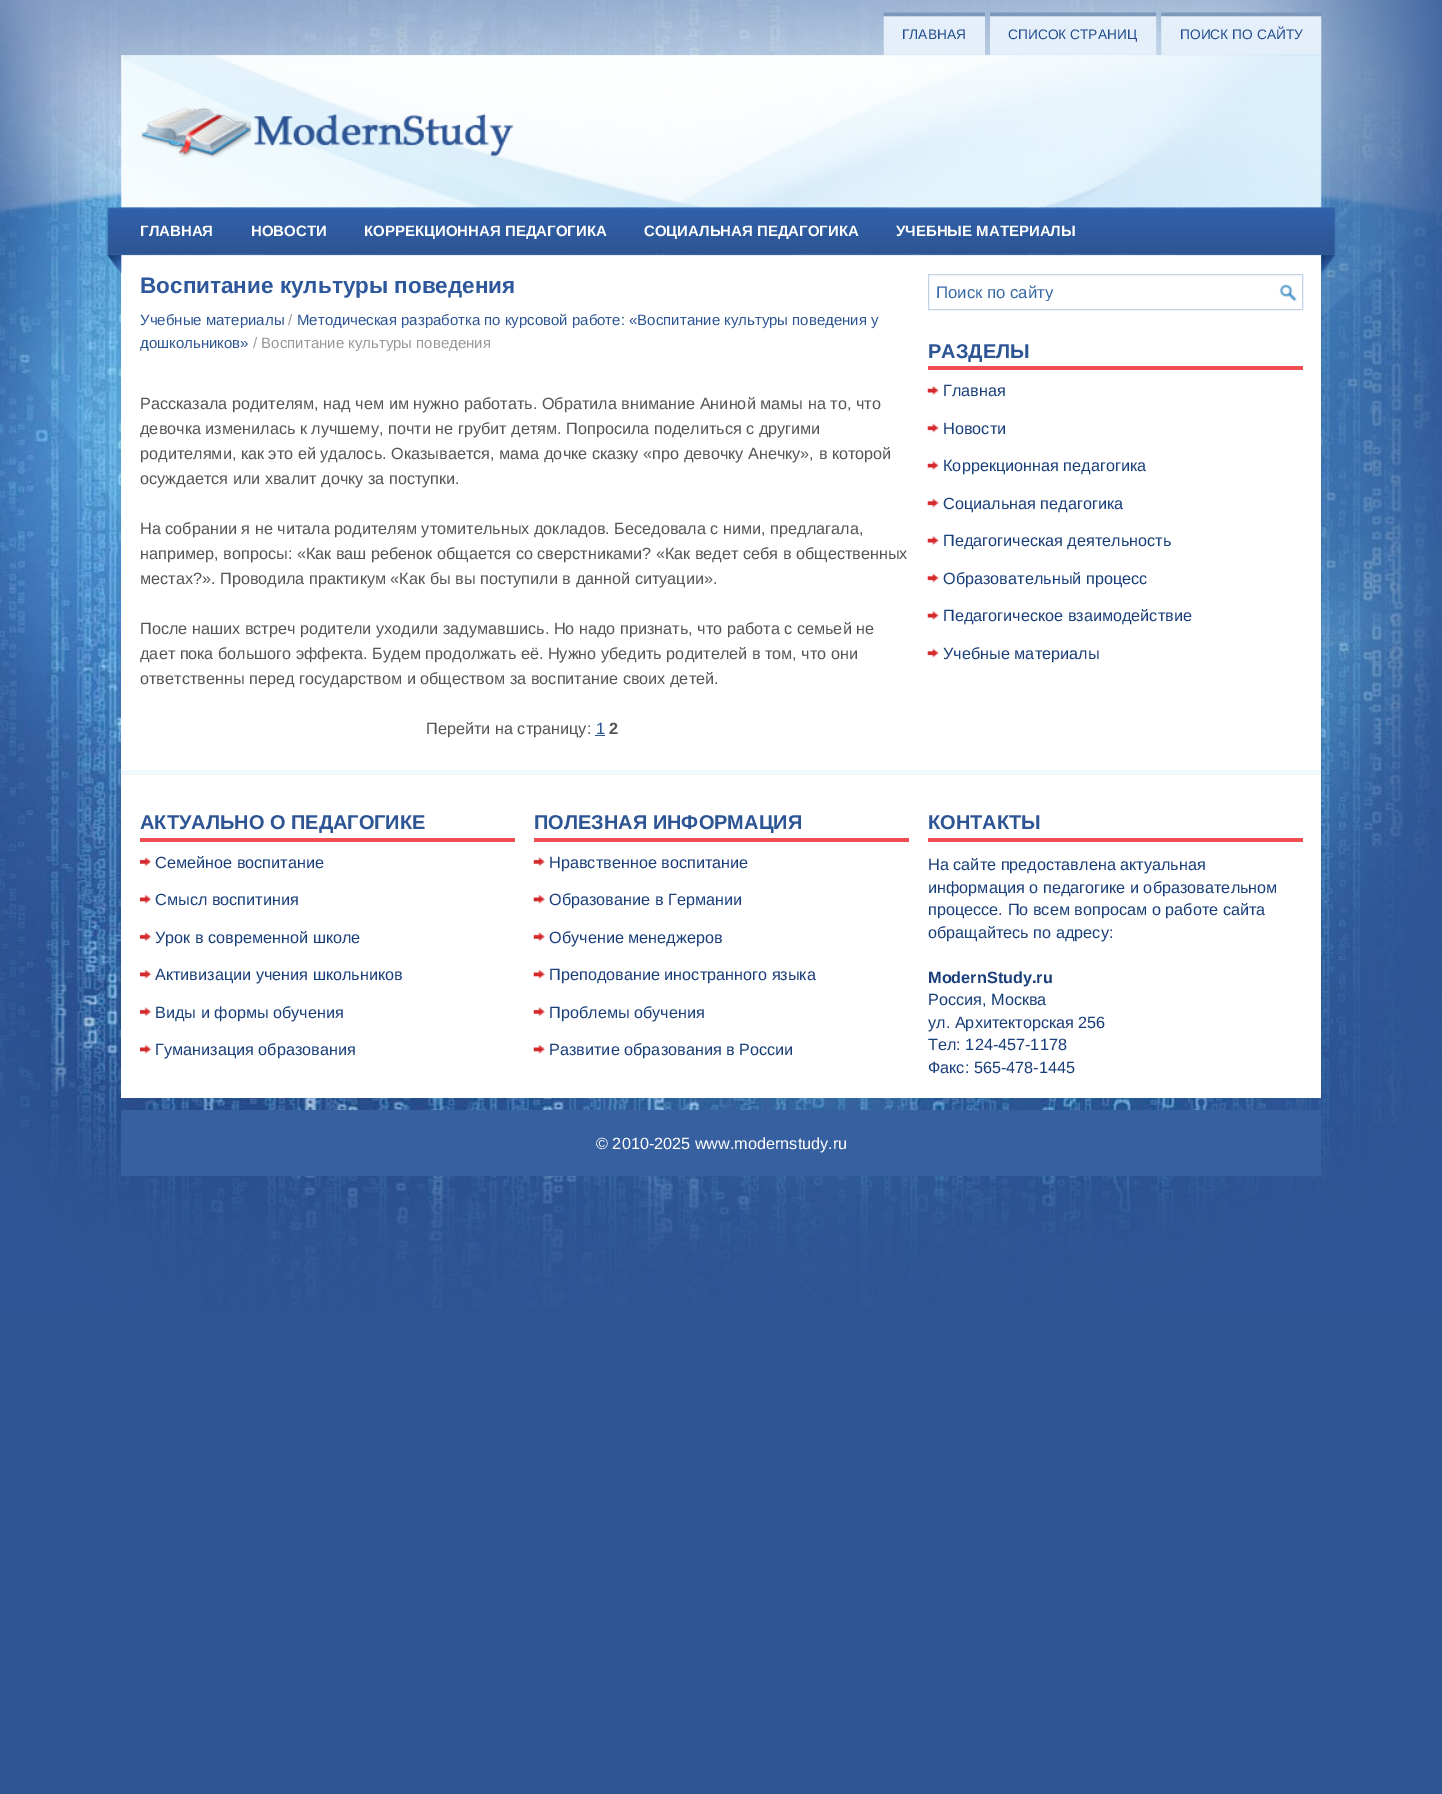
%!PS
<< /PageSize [1442 1794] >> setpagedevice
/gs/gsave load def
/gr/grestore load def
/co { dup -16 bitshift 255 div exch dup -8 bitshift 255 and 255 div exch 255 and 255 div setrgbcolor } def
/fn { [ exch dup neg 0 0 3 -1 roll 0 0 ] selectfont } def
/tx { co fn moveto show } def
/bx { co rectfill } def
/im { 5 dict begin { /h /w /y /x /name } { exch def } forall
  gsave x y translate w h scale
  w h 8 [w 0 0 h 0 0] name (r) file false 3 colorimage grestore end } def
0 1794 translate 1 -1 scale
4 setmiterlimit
0 0 1442 1794 16#2D5594 bx
(media/1.raw) 0 0 1442 1308 im
(media/2.raw) 883 12 102 43 im
(media/3.raw) 990 12 167 43 im
(media/4.raw) 1161 12 161 43 im
(media/5.raw) 121 55 1201 153 im
(media/6.raw) 141 107 373 51 im
121 255 1200 515 16#FFFFFF bx
(media/7.raw) 107 207 1229 67 im
595 735 10 1 16#2D5594 bx
(media/8.raw) 1279 284 18 18 im
16#C1D4E6 co
928.5 274.5 374 35 rectstroke
928 366 375 4 16#EF4F51 bx
(media/9.raw) 927 386 12 9 im
(media/10.raw) 927 423 12 10 im
(media/9.raw) 927 461 12 9 im
(media/10.raw) 927 498 12 10 im
(media/9.raw) 927 536 12 9 im
(media/10.raw) 927 573 12 10 im
(media/9.raw) 927 611 12 9 im
(media/10.raw) 927 648 12 10 im
121 775 1200 323 16#FFFFFF bx
121 770 1200 5 16#F0F9FE bx
140 838 375 4 16#EF4F51 bx
(media/11.raw) 140 857 12 10 im
(media/12.raw) 140 895 12 9 im
(media/11.raw) 140 932 12 10 im
(media/12.raw) 140 970 12 9 im
(media/11.raw) 140 1007 12 10 im
(media/12.raw) 140 1045 12 9 im
534 838 375 4 16#EF4F51 bx
(media/13.raw) 533 857 12 10 im
(media/14.raw) 533 895 12 9 im
(media/13.raw) 533 932 12 10 im
(media/14.raw) 533 970 12 9 im
(media/13.raw) 533 1007 12 10 im
(media/14.raw) 533 1045 12 9 im
928 838 375 4 16#EF4F51 bx
121 1110 1200 66 16#3760A0 bx
(ГЛАВНАЯ) 902 39 /LiberationSans-Regular 13.75 16#244D8E tx
(СПИСОК СТРАНИЦ) 1008 39 /LiberationSans-Regular 13.75 16#244D8E tx
(ПОИСК ПО САЙТУ) 1180 39 /LiberationSans-Regular 13.75 16#244D8E tx
(ГЛАВНАЯ) 140 236 /LiberationSans-Bold 15 16#FFFFFF tx
(НОВОСТИ) 251 236 /LiberationSans-Bold 15 16#FFFFFF tx
(КОРРЕКЦИОННАЯ ПЕДАГОГИКА) 364 236 /LiberationSans-Bold 15 16#FFFFFF tx
(СОЦИАЛЬНАЯ ПЕДАГОГИКА) 644 236 /LiberationSans-Bold 15 16#FFFFFF tx
(УЧЕБНЫЕ МАТЕРИАЛЫ) 896 236 /LiberationSans-Bold 15 16#FFFFFF tx
(Воспитание культуры поведения) 140 293 /LiberationSans-Bold 22.5 16#2E589B tx
(Учебные материалы) 140 325 /LiberationSans-Regular 15 16#2D5594 tx
(/) 288 325 /LiberationSans-Regular 15 16#999999 tx
(Методическая разработка по курсовой работе: «Воспитание культуры поведения у) 297 325 /LiberationSans-Regular 15 16#2D5594 tx
(дошкольников») 140 348 /LiberationSans-Regular 15 16#2D5594 tx
(/ Воспитание культуры поведения) 253 348 /LiberationSans-Regular 15 16#999999 tx
(Рассказала родителям, над чем им нужно работать. Обратила внимание Аниной мамы на то, что) 140 409 /LiberationSans-Regular 16.25 16#555555 tx
(девочка изменилась к лучшему, почти не грубит детям. Попросила поделиться с другими) 140 434 /LiberationSans-Regular 16.25 16#555555 tx
(родителями, как это ей удалось. Оказывается, мама дочке сказку «про девочку Анечку», в которой) 140 459 /LiberationSans-Regular 16.25 16#555555 tx
(осуждается или хвалит дочку за поступки.) 140 484 /LiberationSans-Regular 16.25 16#555555 tx
(На собрании я не читала родителям утомительных докладов. Беседовала с ними, предлагала,) 140 534 /LiberationSans-Regular 16.25 16#555555 tx
(например, вопросы: «Как ваш ребенок общается со сверстниками? «Как ведет себя в общественных) 140 559 /LiberationSans-Regular 16.25 16#555555 tx
(местах?». Проводила практикум «Как бы вы поступили в данной ситуации».) 140 584 /LiberationSans-Regular 16.25 16#555555 tx
(После наших встреч родители уходили задумавшись. Но надо признать, что работа с семьей не) 140 634 /LiberationSans-Regular 16.25 16#555555 tx
(дает пока большого эффекта. Будем продолжать её. Нужно убедить родителей в том, что они) 140 659 /LiberationSans-Regular 16.25 16#555555 tx
(ответственны перед государством и обществом за воспитание своих детей.) 140 684 /LiberationSans-Regular 16.25 16#555555 tx
(Перейти на страницу:) 426 734 /LiberationSans-Regular 16.25 16#555555 tx
(1) 596 734 /LiberationSans-Regular 16.25 16#2D5594 tx
(2) 609 734 /LiberationSans-Bold 16.25 16#555555 tx
gs
936 283 335 18 rectclip
(Поиск по сайту) 936 298 /LiberationSans-Regular 16.75 16#3669A6 tx
gr
(РАЗДЕЛЫ) 928 358 /LiberationSans-Bold 20 16#2D5594 tx
(Главная) 943 396 /LiberationSans-Regular 16.25 16#193E79 tx
(Новости) 943 434 /LiberationSans-Regular 16.25 16#193E79 tx
(Коррекционная педагогика) 943 471 /LiberationSans-Regular 16.25 16#193E79 tx
(Социальная педагогика) 943 509 /LiberationSans-Regular 16.25 16#193E79 tx
(Педагогическая деятельность) 943 546 /LiberationSans-Regular 16.25 16#193E79 tx
(Образовательный процесс) 943 584 /LiberationSans-Regular 16.25 16#193E79 tx
(Педагогическое взаимодействие) 943 621 /LiberationSans-Regular 16.25 16#193E79 tx
(Учебные материалы) 943 659 /LiberationSans-Regular 16.25 16#193E79 tx
(АКТУАЛЬНО О ПЕДАГОГИКЕ) 140 829 /LiberationSans-Bold 20 16#2D5594 tx
(Семейное воспитание) 155 868 /LiberationSans-Regular 16.25 16#193E79 tx
(Смысл воспитиния) 155 905 /LiberationSans-Regular 16.25 16#193E79 tx
(Уpок в совpеменной школе) 155 943 /LiberationSans-Regular 16.25 16#193E79 tx
(Активизации учения школьников) 155 980 /LiberationSans-Regular 16.25 16#193E79 tx
(Виды и формы обучения) 155 1018 /LiberationSans-Regular 16.25 16#193E79 tx
(Гуманизация образования) 155 1055 /LiberationSans-Regular 16.25 16#193E79 tx
(ПОЛЕЗНАЯ ИНФОРМАЦИЯ) 534 829 /LiberationSans-Bold 20 16#2D5594 tx
(Нравственное воспитание) 549 868 /LiberationSans-Regular 16.25 16#193E79 tx
(Образование в Германии) 549 905 /LiberationSans-Regular 16.25 16#193E79 tx
(Обучение менеджеров) 549 943 /LiberationSans-Regular 16.25 16#193E79 tx
(Преподование иностранного языка) 549 980 /LiberationSans-Regular 16.25 16#193E79 tx
(Проблемы обучения) 549 1018 /LiberationSans-Regular 16.25 16#193E79 tx
(Развитие образования в России) 549 1055 /LiberationSans-Regular 16.25 16#193E79 tx
(КОНТАКТЫ) 928 829 /LiberationSans-Bold 20 16#2D5594 tx
(На сайте предоставлена актуальная) 928 870 /LiberationSans-Regular 16.25 16#193E79 tx
(информация о педагогике и образовательном) 928 893 /LiberationSans-Regular 16.25 16#193E79 tx
(процессе. По всем вопросам о работе сайта) 928 915 /LiberationSans-Regular 16.25 16#193E79 tx
(обращайтесь по адресу:) 928 938 /LiberationSans-Regular 16.25 16#193E79 tx
(ModernStudy.ru) 928 983 /LiberationSans-Bold 16.25 16#193E79 tx
(Россия, Москва) 928 1005 /LiberationSans-Regular 16.25 16#193E79 tx
(ул. Архитекторская 256) 928 1028 /LiberationSans-Regular 16.25 16#193E79 tx
(Тел: 124-457-1178) 928 1050 /LiberationSans-Regular 16.25 16#193E79 tx
(Факс: 565-478-1445) 928 1073 /LiberationSans-Regular 16.25 16#193E79 tx
(© 2010-2025 www.modernstudy.ru) 596 1149 /LiberationSans-Regular 16.25 16#FFFFFF tx
showpage
